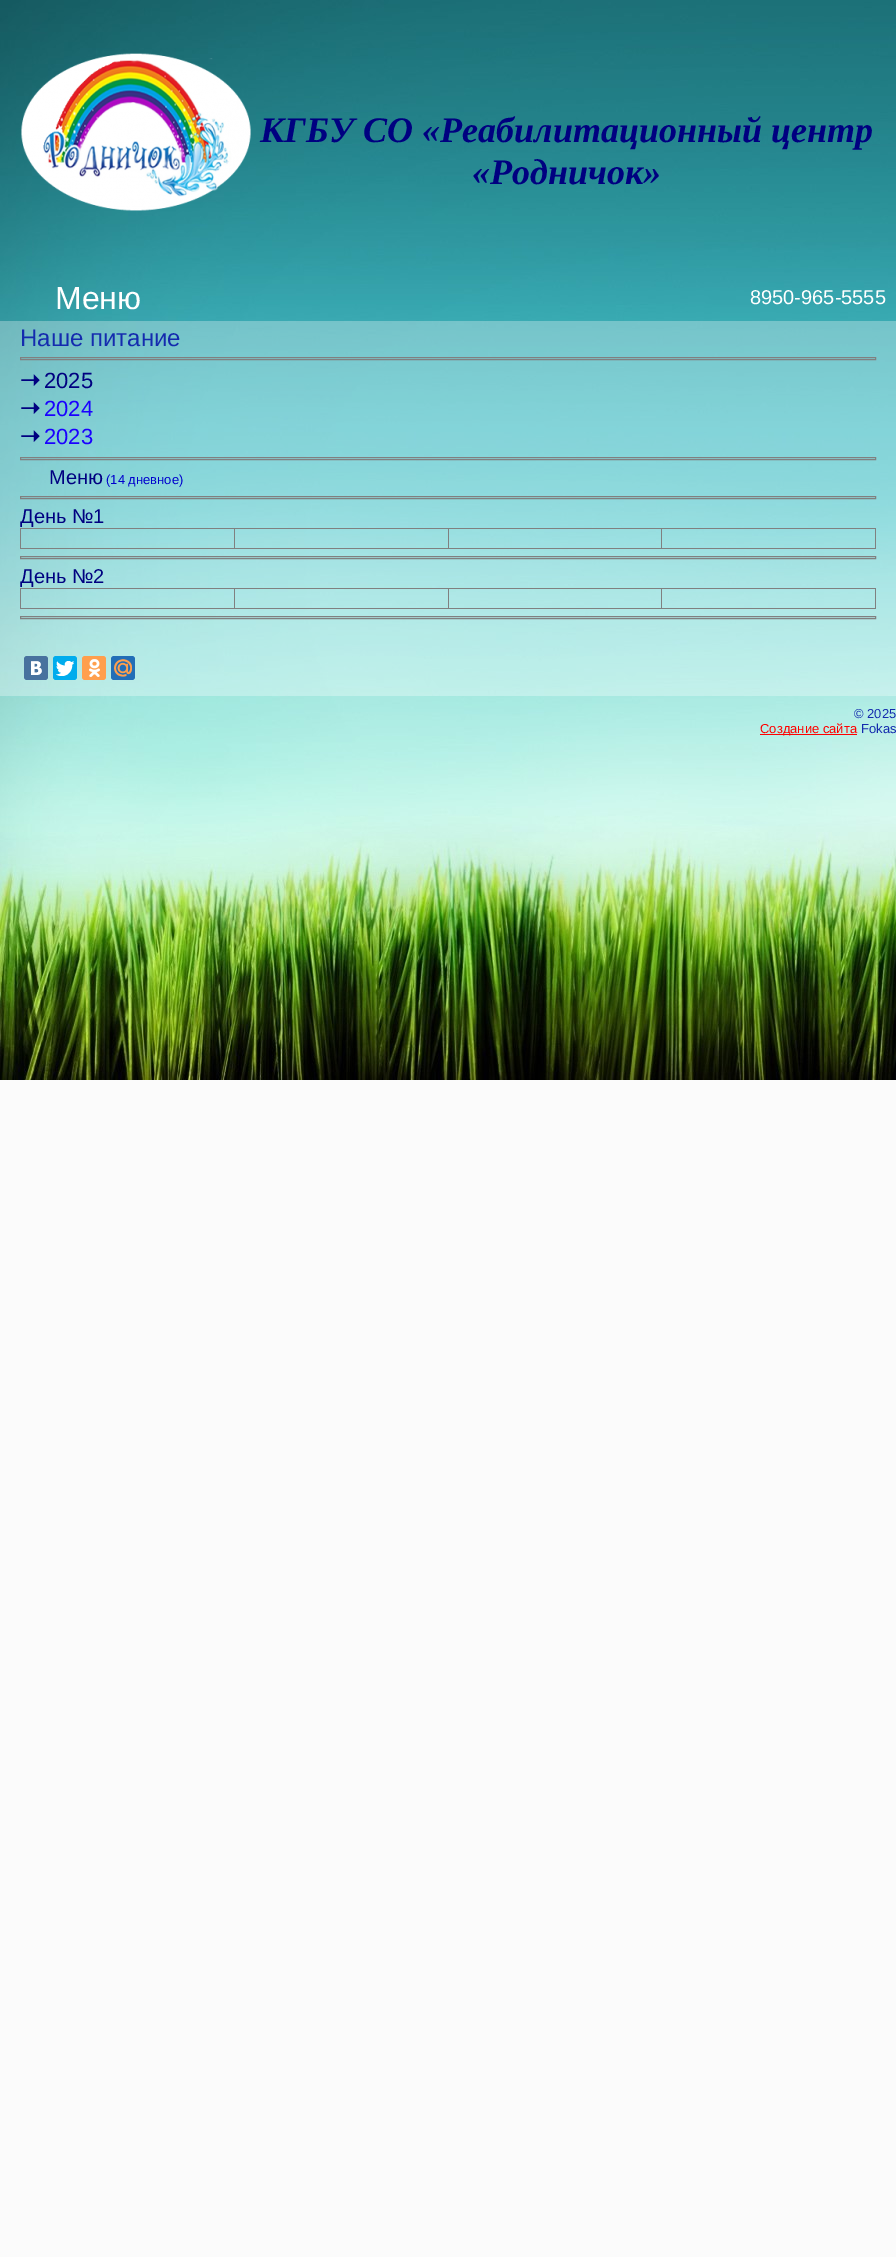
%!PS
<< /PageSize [896 2257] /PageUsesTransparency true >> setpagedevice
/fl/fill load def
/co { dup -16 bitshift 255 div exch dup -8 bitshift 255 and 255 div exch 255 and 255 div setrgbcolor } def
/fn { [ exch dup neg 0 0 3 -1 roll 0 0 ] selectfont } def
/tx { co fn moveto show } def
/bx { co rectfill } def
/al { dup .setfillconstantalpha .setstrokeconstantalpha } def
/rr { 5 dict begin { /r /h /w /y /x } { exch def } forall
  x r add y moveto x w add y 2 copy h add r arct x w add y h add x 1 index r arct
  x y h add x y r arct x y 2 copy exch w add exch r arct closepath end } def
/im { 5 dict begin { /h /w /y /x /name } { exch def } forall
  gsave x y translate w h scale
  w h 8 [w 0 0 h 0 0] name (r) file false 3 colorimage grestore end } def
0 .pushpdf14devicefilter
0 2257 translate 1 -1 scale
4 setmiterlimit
0 0 896 2257 16#FBFBFB bx
(media/1.raw) 0 0 896 1080 im
(media/2.raw) 21 53 230 158 im
0.3 al
0 321 896 375 16#FFFFFF bx
1 al
16#808080 co
20.5 357.5 855 2 rectstroke
20.5 457.5 855 2 rectstroke
20.5 496.5 855 2 rectstroke
20 528 856 1 16#808080 bx
875 528 1 21 16#808080 bx
20 548 856 1 16#808080 bx
20 528 1 21 16#808080 bx
234 528 1 21 16#808080 bx
448 528 1 21 16#808080 bx
661 528 1 21 16#808080 bx
20.5 556.5 855 2 rectstroke
20 588 856 1 16#808080 bx
875 588 1 21 16#808080 bx
20 608 856 1 16#808080 bx
20 588 1 21 16#808080 bx
234 588 1 21 16#808080 bx
448 588 1 21 16#808080 bx
661 588 1 21 16#808080 bx
20.5 616.5 855 2 rectstroke
16#48729E co
24 656 24 24 3 rr fl
(media/3.raw) 31 661 11 14 im
16#00ACED co
53 656 24 24 3 rr fl
(media/4.raw) 56 661 18 15 im
16#FF9F4D co
82 656 24 24 3 rr fl
(media/5.raw) 89 659 11 18 im
16#226EB7 co
111 656 24 24 3 rr fl
(media/6.raw) 114 659 18 18 im
760 734 97 1 16#FF0000 bx
(КГБУ СО «Реабилитационный центр) 260 142 /LiberationSerif-BoldItalic 36 16#000080 tx
(«Родничок») 472 184 /LiberationSerif-BoldItalic 36 16#000080 tx
(Меню) 55 309 /LiberationSans-Regular 32 16#FFFFFF tx
(8950-965-5555) 750 304 /LiberationSans-Regular 20 16#FFFFFF tx
(Наше питание) 20 346 /LiberationSans-Regular 24 16#142BAE tx
(➝) 20 388 /DejaVuSans-Bold 24 16#000080 tx
(2025) 44 388 /LiberationSans-Regular 22 16#000080 tx
(➝) 20 416 /DejaVuSans-Bold 24 16#000080 tx
(2024) 44 416 /LiberationSans-Regular 22 16#1A00FF tx
(➝) 20 444 /DejaVuSans-Bold 24 16#000080 tx
(2023) 44 444 /LiberationSans-Regular 22 16#1A00FF tx
(Меню) 49 484 /LiberationSans-Regular 20 16#000080 tx
(\(14 дневное\)) 106 484 /LiberationSans-Regular 13 16#0000CD tx
(День №1) 20 523 /LiberationSans-Regular 20 16#000080 tx
(День №2) 20 583 /LiberationSans-Regular 20 16#000080 tx
(© 2025) 854 718 /LiberationSans-Regular 13 16#142BAE tx
(Создание сайта) 760 733 /LiberationSans-Regular 13 16#FF0000 tx
(Fokas) 861 733 /LiberationSans-Regular 13 16#142BAE tx
.poppdf14devicefilter showpage
